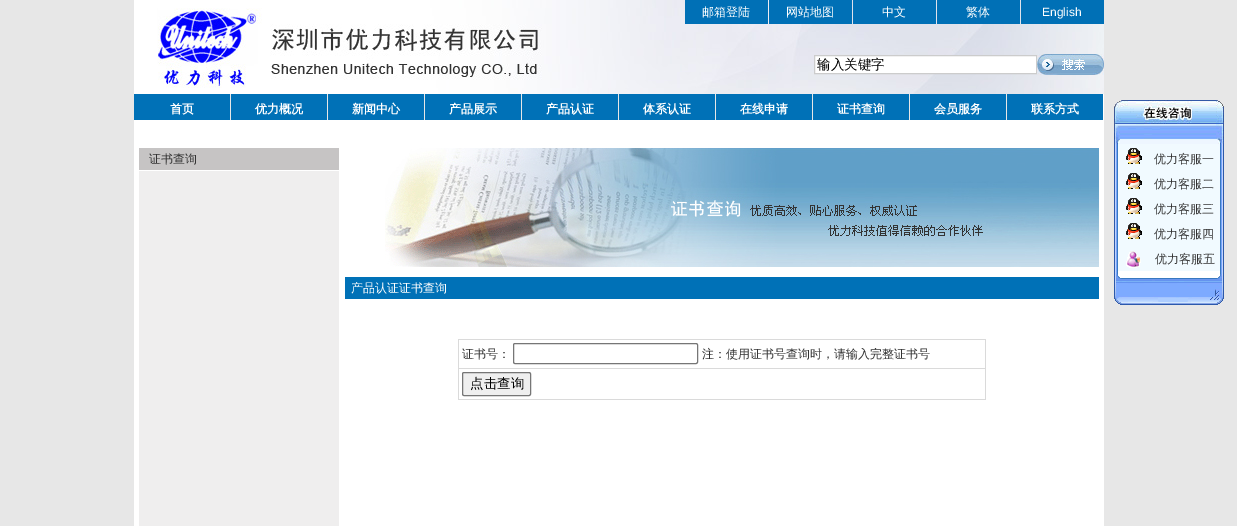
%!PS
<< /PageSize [1237 526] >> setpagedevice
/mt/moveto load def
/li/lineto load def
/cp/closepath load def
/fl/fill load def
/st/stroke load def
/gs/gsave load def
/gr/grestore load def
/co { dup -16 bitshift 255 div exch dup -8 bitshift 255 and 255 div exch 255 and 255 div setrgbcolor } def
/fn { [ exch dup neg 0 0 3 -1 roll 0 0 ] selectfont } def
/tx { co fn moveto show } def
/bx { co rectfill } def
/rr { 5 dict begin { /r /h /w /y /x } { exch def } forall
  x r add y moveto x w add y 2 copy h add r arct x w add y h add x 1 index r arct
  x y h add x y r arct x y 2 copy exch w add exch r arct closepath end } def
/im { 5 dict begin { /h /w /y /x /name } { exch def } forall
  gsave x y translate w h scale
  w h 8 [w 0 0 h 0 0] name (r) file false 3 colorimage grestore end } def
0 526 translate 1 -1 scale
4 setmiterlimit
0 0 1237 526 16#E7E7E7 bx
(media/1.raw) 134 0 410 94 im
(media/2.raw) 544 0 560 94 im
685 0 83 24 16#0070B6 bx
769 0 83 24 16#0070B6 bx
853 0 83 24 16#0070B6 bx
937 0 83 24 16#0070B6 bx
1021 0 83 24 16#0070B6 bx
16#FFFFFF co
814.5 55.5 mt 1036.5 55.5 li 1036.5 73.5 li 814.5 73.5 li cp gs fl gr
16#CCCCCC co
st
(media/3.raw) 1037 54 67 21 im
134 94 96 26 16#0071B7 bx
231 94 96 26 16#0071B7 bx
328 94 96 26 16#0071B7 bx
425 94 96 26 16#0071B7 bx
522 94 96 26 16#0071B7 bx
619 94 96 26 16#0071B7 bx
716 94 96 26 16#0071B7 bx
813 94 96 26 16#0071B7 bx
910 94 96 26 16#0071B7 bx
1103 94 1 26 16#FFFFFF bx
1007 94 96 26 16#0071B7 bx
134 120 970 28 16#FFFFFF bx
(media/4.raw) 1114 100 110 44 im
(media/5.raw) 1114 144 110 127 im
(media/6.raw) 1126 148 16 16 im
(media/6.raw) 1126 173 16 16 im
(media/6.raw) 1126 198 16 16 im
(media/6.raw) 1126 223 16 16 im
(media/7.raw) 1126 251 15 17 im
(media/8.raw) 1114 271 110 34 im
134 148 5 378 16#FFFFFF bx
139 171 200 355 16#EFEEEE bx
139 148 200 22 16#C6C4C4 bx
139 170 200 1 16#FFFFFF bx
339 148 765 378 16#FFFFFF bx
(media/9.raw) 385 148 714 119 im
345 277 754 22 16#0071B7 bx
458 339 528 61 16#DADADA bx
459 340 526 28 16#FFFFFF bx
16#767676 co
513.5 343.5 184 20 1.5 rr st
459 369 526 30 16#FFFFFF bx
16#EFEFEF co
462.5 372.5 68 23 1.5 rr gs fl gr
16#767676 co
st
(邮箱登陆) 702 16 /WenQuanYiZenHei-Medium 12 16#FFFFFF tx
(网站地图) 786 16 /WenQuanYiZenHei-Medium 12 16#FFFFFF tx
(中文) 882 16 /WenQuanYiZenHei-Medium 12 16#FFFFFF tx
(繁体) 966 16 /WenQuanYiZenHei-Medium 12 16#FFFFFF tx
(English) 1042 16 /LiberationSans-Regular 12 16#FFFFFF tx
(输入关键字) 817 69 /WenQuanYiZenHei-Medium 13.5 16#000000 tx
(首页) 170 113 /WenQuanYiZenHei-Bold 12 16#FFFFFF tx
(优力概况) 255 113 /WenQuanYiZenHei-Bold 12 16#FFFFFF tx
(新闻中心) 352 113 /WenQuanYiZenHei-Bold 12 16#FFFFFF tx
(产品展示) 449 113 /WenQuanYiZenHei-Bold 12 16#FFFFFF tx
(产品认证) 546 113 /WenQuanYiZenHei-Bold 12 16#FFFFFF tx
(体系认证) 643 113 /WenQuanYiZenHei-Bold 12 16#FFFFFF tx
(在线申请) 740 113 /WenQuanYiZenHei-Bold 12 16#FFFFFF tx
(证书查询) 837 113 /WenQuanYiZenHei-Bold 12 16#FFFFFF tx
(会员服务) 934 113 /WenQuanYiZenHei-Bold 12 16#FFFFFF tx
(联系方式) 1031 113 /WenQuanYiZenHei-Bold 12 16#FFFFFF tx
(优力客服一) 1154 163 /WenQuanYiZenHei-Medium 12 16#333333 tx
(优力客服二) 1154 188 /WenQuanYiZenHei-Medium 12 16#333333 tx
(优力客服三) 1154 213 /WenQuanYiZenHei-Medium 12 16#333333 tx
(优力客服四) 1154 238 /WenQuanYiZenHei-Medium 12 16#333333 tx
(优力客服五) 1155 263 /WenQuanYiZenHei-Medium 12 16#333333 tx
(证书查询) 149 163 /WenQuanYiZenHei-Medium 12 16#333333 tx
(产品认证证书查询) 351 292 /WenQuanYiZenHei-Medium 12 16#FFFFFF tx
(证书号：) 462 358 /WenQuanYiZenHei-Medium 12 16#333333 tx
(注：使用证书号查询时，请输入完整证书号) 702 358 /WenQuanYiZenHei-Medium 12 16#333333 tx
(点击查询) 470 388 /WenQuanYiZenHei-Medium 13.5 16#000000 tx
showpage
